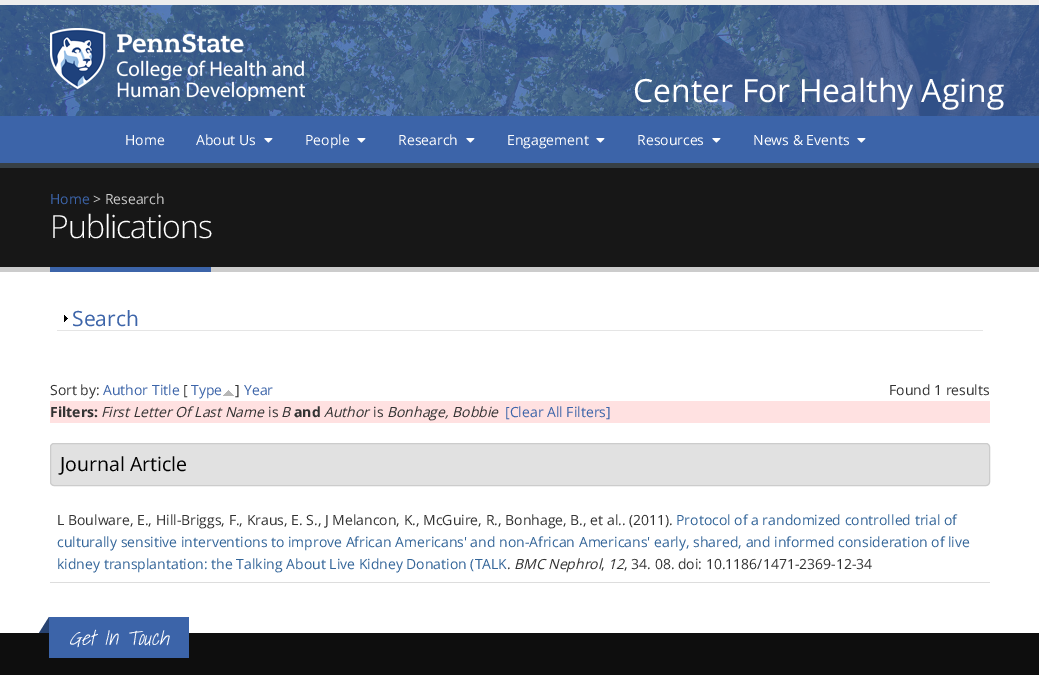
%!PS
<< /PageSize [1039 675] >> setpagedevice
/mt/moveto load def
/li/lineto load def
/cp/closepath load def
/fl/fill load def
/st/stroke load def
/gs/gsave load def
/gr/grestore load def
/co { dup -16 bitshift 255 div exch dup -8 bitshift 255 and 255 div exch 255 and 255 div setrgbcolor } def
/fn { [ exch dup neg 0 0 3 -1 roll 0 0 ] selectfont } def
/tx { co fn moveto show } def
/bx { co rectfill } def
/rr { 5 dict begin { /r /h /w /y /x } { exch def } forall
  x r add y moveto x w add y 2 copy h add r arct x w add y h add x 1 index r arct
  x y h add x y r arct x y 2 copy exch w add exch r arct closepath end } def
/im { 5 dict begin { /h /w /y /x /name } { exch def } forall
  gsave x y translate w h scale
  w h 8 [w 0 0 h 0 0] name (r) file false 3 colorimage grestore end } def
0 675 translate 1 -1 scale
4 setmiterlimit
0 0 1039 675 16#FFFFFF bx
(media/1.raw) 0 5 1039 111 im
0 0 1039 5 16#EDEDED bx
(media/2.raw) 50 28 255 73 im
0 116 1039 47 16#3C64A9 bx
(media/3.raw) 264 138 9 5 im
(media/3.raw) 357 138 9 5 im
(media/3.raw) 466 138 9 5 im
(media/3.raw) 596 138 9 5 im
(media/3.raw) 712 138 9 5 im
(media/3.raw) 857 138 9 5 im
0 168 1039 99 16#171717 bx
0 163 1039 5 16#384045 bx
0 267 1039 5 16#CCCCCC bx
50 267 161 5 16#3C64A9 bx
57 330 926 1 16#E5E5E5 bx
(media/4.raw) 64 315 4 7 im
(media/5.raw) 223 390 11 6 im
50 401 940 22 16#FFE1E1 bx
16#E1E1E1 co
50.5 443.5 939 42 3.5 rr gs fl gr
16#CCCCCC co
st
50 582 940 1 16#DDDDDD bx
0 633 1039 42 16#0E0E0E bx
49 617 140 41 16#3C64A9 bx
16#284371 co
49 617 mt 49 633 li 39 633 li cp fl
(Center For Healthy Aging) 633 102 /OpenSans-Regular 32 16#FFFFFF tx
(Home) 125 145 /OpenSans-Regular 14 16#FFFFFF tx
(About Us) 196 145 /OpenSans-Regular 14 16#FFFFFF tx
(People) 305 145 /OpenSans-Regular 14 16#FFFFFF tx
(Research) 398 145 /OpenSans-Regular 14 16#FFFFFF tx
(Engagement) 507 145 /OpenSans-Regular 14 16#FFFFFF tx
(Resources) 637 145 /OpenSans-Regular 14 16#FFFFFF tx
(News & Events) 753 145 /OpenSans-Regular 14 16#FFFFFF tx
(Home) 50 204 /OpenSans-Regular 14 16#3C64A9 tx
(> Research) 93 204 /OpenSans-Regular 14 16#CCCCCC tx
/OpenSans-Light 32 fn
16#FFFFFF co
50 238 mt -1 0 (Publications) ashow
(Search) 72 326 /OpenSans-Regular 21 16#3C64A9 tx
(Sort by:) 50 395 /OpenSans-Regular 14 16#333333 tx
(Author Title) 103 395 /OpenSans-Regular 14 16#3C64A9 tx
([) 183 395 /OpenSans-Regular 14 16#333333 tx
(Type) 191 395 /OpenSans-Regular 14 16#3C64A9 tx
(]) 235 395 /OpenSans-Regular 14 16#333333 tx
(Year) 244 395 /OpenSans-Regular 14 16#3C64A9 tx
(Found 1 results) 889 395 /OpenSans-Regular 14 16#333333 tx
(Filters:) 50 417 /OpenSans-Bold 14 16#333333 tx
(First Letter Of Last Name) 101 417 /OpenSans-Italic 14 16#333333 tx
(is) 268 417 /OpenSans-Regular 14 16#333333 tx
(B) 281 417 /OpenSans-Italic 14 16#333333 tx
(and) 294 417 /OpenSans-Bold 14 16#333333 tx
(Author) 324 417 /OpenSans-Italic 14 16#333333 tx
(is) 373 417 /OpenSans-Regular 14 16#333333 tx
(Bonhage, Bobbie) 387 417 /OpenSans-Italic 14 16#333333 tx
([Clear All Filters]) 505 417 /OpenSans-Regular 14 16#3C64A9 tx
(Journal Article) 60 471 /OpenSans-Regular 19.5 16#000000 tx
(L Boulware, E., Hill-Briggs, F., Kraus, E. S., J Melancon, K., McGuire, R., Bonhage, B., et al.. \(2011\).) 57 525 /OpenSans-Regular 14 16#333333 tx
(Protocol of a randomized controlled trial of) 676 525 /OpenSans-Regular 14 16#336599 tx
(culturally sensitive interventions to improve African Americans' and non-African Americans' early, shared, and informed consideration of live) 57 547 /OpenSans-Regular 14 16#336599 tx
(kidney transplantation: the Talking About Live Kidney Donation \(TALK) 57 569 /OpenSans-Regular 14 16#336599 tx
(.) 507 569 /OpenSans-Regular 14 16#333333 tx
(BMC Nephrol) 514 569 /OpenSans-Italic 14 16#333333 tx
(12) 608 569 /OpenSans-Italic 14 16#333333 tx
(, 34. 08. doi: 10.1186/1471-2369-12-34) 624 569 /OpenSans-Regular 14 16#333333 tx
(,) 601 569 /OpenSans-Regular 14 16#333333 tx
(Get In Touch) 69 645 /ShadowsIntoLight-LightItalic 20 16#FFFFFF tx
showpage
